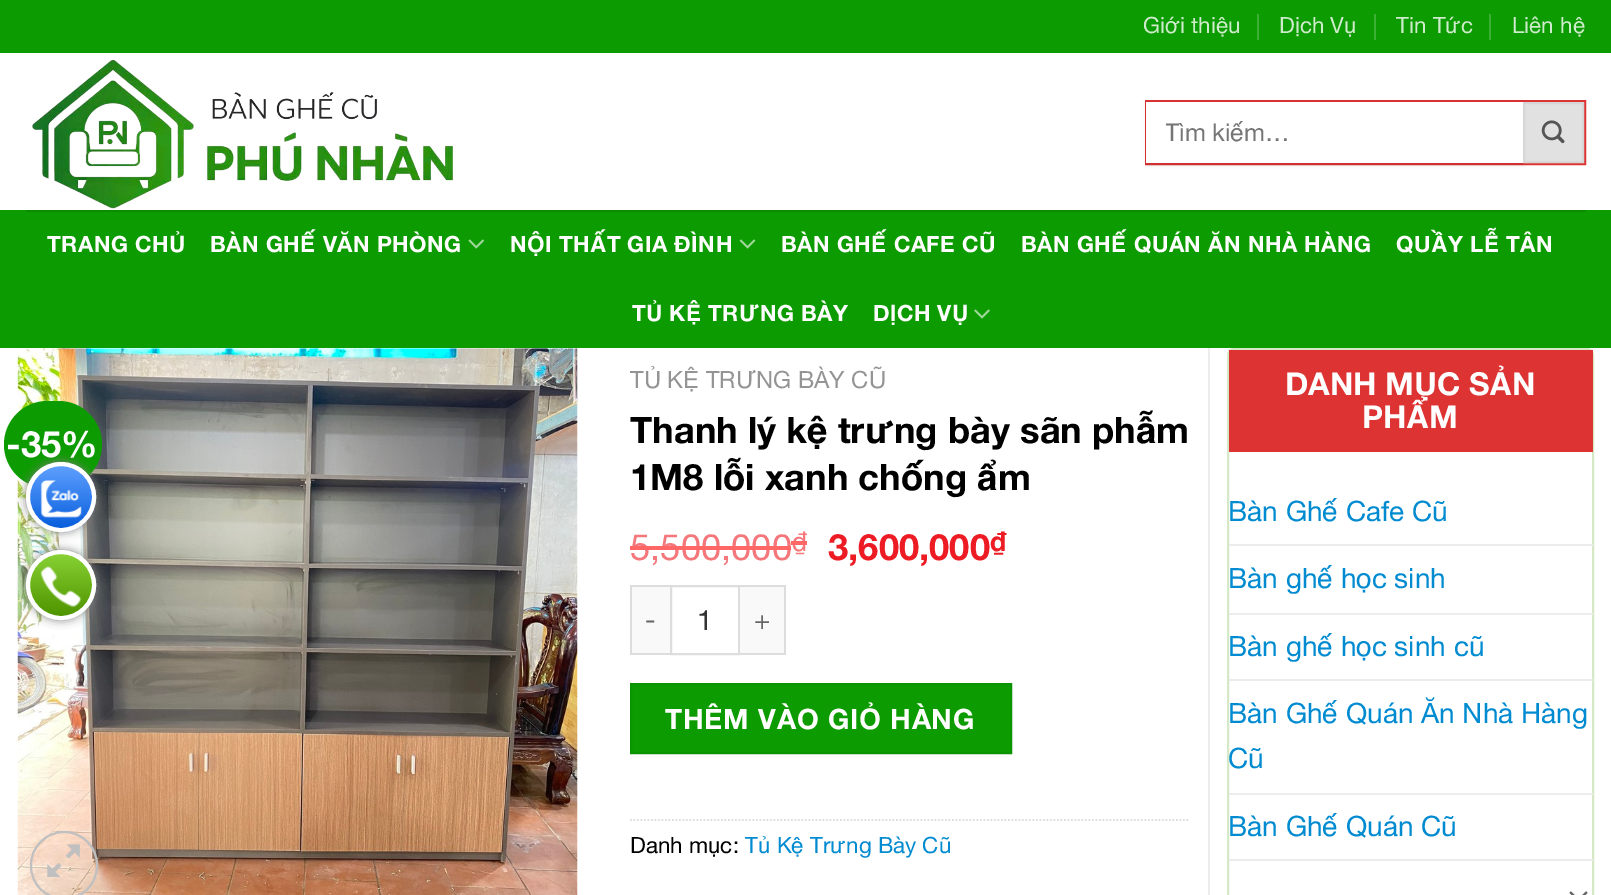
%!PS
<< /PageSize [1611 895] /PageUsesTransparency true >> setpagedevice
/mt/moveto load def
/li/lineto load def
/cp/closepath load def
/fl/fill load def
/st/stroke load def
/gs/gsave load def
/gr/grestore load def
/lw/setlinewidth load def
/co { dup -16 bitshift 255 div exch dup -8 bitshift 255 and 255 div exch 255 and 255 div setrgbcolor } def
/fn { [ exch dup neg 0 0 3 -1 roll 0 0 ] selectfont } def
/tx { co fn moveto show } def
/bx { co rectfill } def
/al { dup .setfillconstantalpha .setstrokeconstantalpha } def
/ci { newpath 0 360 arc closepath } def
/rr { 5 dict begin { /r /h /w /y /x } { exch def } forall
  x r add y moveto x w add y 2 copy h add r arct x w add y h add x 1 index r arct
  x y h add x y r arct x y 2 copy exch w add exch r arct closepath end } def
/sh { 12 dict begin { /a /b /q /h /w /y /x } { exch def } forall gsave /was 0 def
  9 -2 -9 { dup b mul 4 div /e exch def 1 sub .425 mul 2.718 exch exp 1 add a .99 .min exch div /now exch def
    1 1 now sub 1 was sub div sub al /was now def
    w h .min e 2 mul add 0 gt { x e sub y e sub w e 2 mul add h e 2 mul add
      q e add b .6 mul add w h .min 2 div e add .min 0 .max rr fill } if } for grestore end } def
/im { 5 dict begin { /h /w /y /x /name } { exch def } forall
  gsave x y translate w h scale
  w h 8 [w 0 0 h 0 0] name (r) file false 3 colorimage grestore end } def
0 .pushpdf14devicefilter
0 895 translate 1 -1 scale
4 setmiterlimit
0 0 1611 895 16#FFFFFF bx
0 0 1611 53 16#0C9B00 bx
1257 14 2 26 16#3DAF33 bx
1374 14 2 26 16#3DAF33 bx
1489 14 2 26 16#3DAF33 bx
(media/1.raw) 32 60 421 149 im
16#DD3333 co
2 lw
1146 101 439 63 rectstroke
16#000000 co
1146 103 377 62 0 2 .1 sh
1146 102 377 61 16#FFFFFF bx
16#E1E1E1 co
1524 103 mt 1583 103 li 1583 162 li 1524 162 li cp gs fl gr
16#D6D6D6 co
st
(media/2.raw) 1541 120 24 24 im
0 210 1611 138 16#0C9B00 bx
26 210 1560 2 16#0B8C00 bx
(media/3.raw) 468 239 16 10 im
(media/4.raw) 739 239 17 10 im
(media/5.raw) 974 309 16 10 im
1208 348 2 547 16#ECECEC bx
(media/6.raw) 17 348 561 547 im
16#0C9B00 co
4 401 98 87 43.5 rr fl
16#C0C0C0 co
31 832 66 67 33 rr st
(media/7.raw) 47 844 33 33 im
632 587 38 66 16#F9F9F9 bx
630 585 40 2 16#DDDDDD bx
630 653 40 2 16#DDDDDD bx
630 585 2 70 16#DDDDDD bx
671 586 68 68 rectstroke
740 587 44 66 16#F9F9F9 bx
740 585 46 2 16#DDDDDD bx
784 585 2 70 16#DDDDDD bx
740 653 46 2 16#DDDDDD bx
16#0C9B00 co
631 684 mt 1011 684 li 1011 753 li 631 753 li cp gs fl gr
16#0B9300 co
st
16#DDDDDD co
1.8 lw
[1.75 1.75] 0 setdash
630 820 mt 1190 820 li st
16#D6E9C6 co
2 lw
[] 0 setdash
1228 349 365 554 6 rr st
1229 350 364 102 16#DD3333 bx
1229 544 364 2 16#ECECEC bx
1229 613 364 2 16#ECECEC bx
1229 679 364 2 16#ECECEC bx
1229 793 364 2 16#ECECEC bx
1229 859 364 2 16#ECECEC bx
(media/8.raw) 1569 891 19 4 im
16#808080 co
26 462 70 70 35 4.5 1 sh
(media/9.raw) 27 466 69 66 im
16#FFFFFF co
4 lw
61 497 33 ci st
16#808080 co
26 550 70 70 35 4.5 1 sh
(media/10.raw) 27 554 69 66 im
16#FFFFFF co
61 585 33 ci st
(Giới thiệu) 1143 33 /HelveticaNeue-Regular 22.4 16#CEEBCC tx
(Dịch Vụ) 1279 33 /HelveticaNeue-Regular 22.4 16#CEEBCC tx
(Tin Tức) 1396 33 /HelveticaNeue-Regular 22.4 16#CEEBCC tx
(Liên hệ) 1512 33 /HelveticaNeue-Regular 22.4 16#CEEBCC tx
gs
1166 117 332 28 rectclip
(Tìm kiếm…) 1165 141 /HelveticaNeue-Regular 24.5 16#757575 tx
gr
/HelveticaNeue-Bold 22.4 fn
16#FFFFFF co
47 252 mt .45 0 (TRANG CHỦ) ashow
210 252 mt .45 0 (BÀN GHẾ VĂN PHÒNG) ashow
510 252 mt .45 0 (NỘI THẤT GIA ĐÌNH) ashow
781 252 mt .45 0 (BÀN GHẾ CAFE CŨ) ashow
1021 252 mt .45 0 (BÀN GHẾ QUÁN ĂN NHÀ HÀNG) ashow
1396 252 mt .45 0 (QUẦY LỄ TÂN) ashow
632 321 mt .45 0 (TỦ KỆ TRƯNG BÀY) ashow
873 321 mt .45 0 (DỊCH VỤ) ashow
(-35%) 6 457 /HelveticaNeue-Bold 36.4 16#FFFFFF tx
(TỦ KỆ TRƯNG BÀY CŨ) 630 388 /HelveticaNeue-Regular 23.75 16#949494 tx
(Thanh lý kệ trưng bày sãn phẫm) 630 443 /HelveticaNeue-Bold 36.4 16#000000 tx
(1M8 lỗi xanh chống ẩm) 630 490 /HelveticaNeue-Bold 36.4 16#000000 tx
(5,500,000) 630 560 /HelveticaNeue-Regular 36.4 16#F4777C tx
630 546 161 4 16#FF6666 bx
(₫) 792 551 /HelveticaNeue-Regular 27 16#F4777C tx
791 541 16 4 16#FF6666 bx
(3,600,000) 828 560 /HelveticaNeue-Bold 36.4 16#ED1C24 tx
(₫) 990 551 /HelveticaNeue-Bold 27 16#ED1C24 tx
/HelveticaNeue-Regular 27 fn
16#666666 co
645 629 mt 1 0 (-) ashow
(1) 697 630 /HelveticaNeue-Regular 28 16#333333 tx
/HelveticaNeue-Regular 27 fn
16#666666 co
754 629 mt 1 0 (+) ashow
/HelveticaNeue-Bold 28 fn
16#FFFFFF co
665 729 mt .8 0 (THÊM VÀO GIỎ HÀNG) ashow
(Danh mục:) 630 853 /HelveticaNeue-Regular 22.4 16#000000 tx
(Tủ Kệ Trưng Bày Cũ) 745 853 /HelveticaNeue-Regular 22.4 16#008BD1 tx
(DANH MỤC SẢN) 1285 395 /HelveticaNeue-Bold 31.5 16#FFFFFF tx
(PHẨM) 1362 428 /HelveticaNeue-Bold 31.5 16#FFFFFF tx
(Bàn Ghế Cafe Cũ) 1228 521 /HelveticaNeue-Regular 28 16#008BD1 tx
(Bàn ghế học sinh) 1228 588 /HelveticaNeue-Regular 28 16#008BD1 tx
(Bàn ghế học sinh cũ) 1228 656 /HelveticaNeue-Regular 28 16#008BD1 tx
(Bàn Ghế Quán Ăn Nhà Hàng) 1228 723 /HelveticaNeue-Regular 28 16#008BD1 tx
(Cũ) 1228 768 /HelveticaNeue-Regular 28 16#008BD1 tx
(Bàn Ghế Quán Cũ) 1228 836 /HelveticaNeue-Regular 28 16#008BD1 tx
.poppdf14devicefilter showpage
